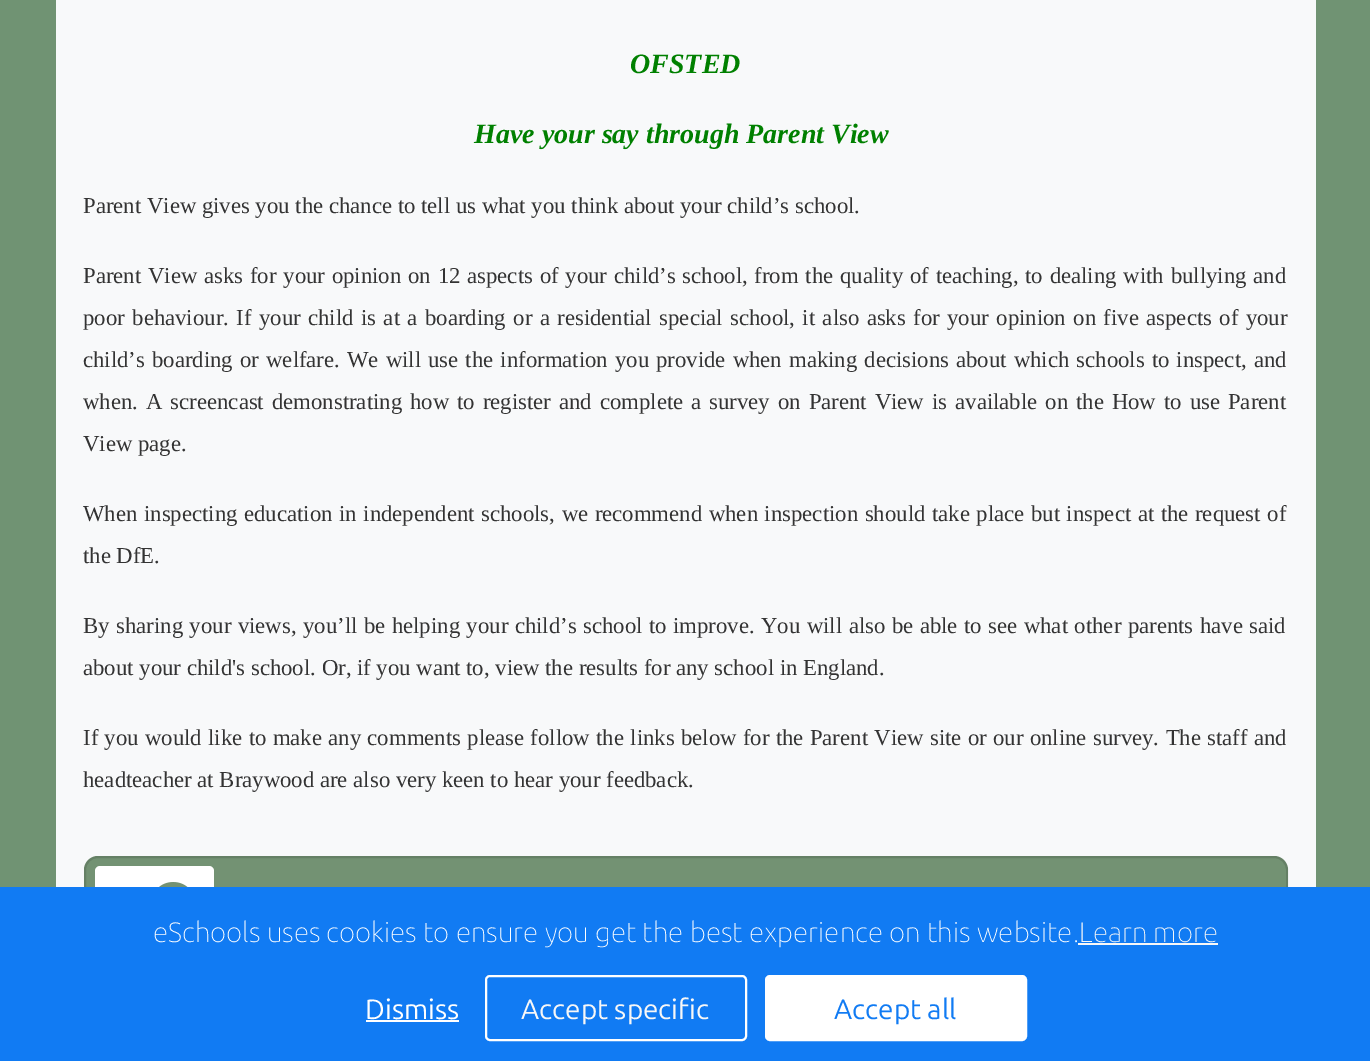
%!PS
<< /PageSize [1370 1061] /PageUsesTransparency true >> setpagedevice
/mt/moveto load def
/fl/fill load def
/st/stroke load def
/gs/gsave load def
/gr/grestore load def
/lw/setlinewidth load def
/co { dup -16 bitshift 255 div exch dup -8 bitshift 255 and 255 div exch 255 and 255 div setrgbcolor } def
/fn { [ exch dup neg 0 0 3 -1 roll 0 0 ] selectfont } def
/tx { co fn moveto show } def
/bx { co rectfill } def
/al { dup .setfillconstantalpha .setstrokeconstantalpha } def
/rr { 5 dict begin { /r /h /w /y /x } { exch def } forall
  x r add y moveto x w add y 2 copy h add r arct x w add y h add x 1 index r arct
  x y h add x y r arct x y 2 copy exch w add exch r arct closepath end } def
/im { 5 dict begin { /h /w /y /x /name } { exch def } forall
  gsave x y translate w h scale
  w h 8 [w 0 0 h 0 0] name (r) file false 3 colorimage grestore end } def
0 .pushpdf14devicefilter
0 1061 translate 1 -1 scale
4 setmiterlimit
0 0 1370 1061 16#709373 bx
56 0 1260 887 16#F8F9FA bx
16#739273 co
84 856 1204 140 14 rr fl
0.12 al
16#000000 co
2 lw
85 857 1202 138 13 rr st
1 al
16#FFFFFF co
95 866 119 119 5 rr fl
(media/1.raw) 159 882 29 5 im
0 887 1370 174 16#117BF3 bx
1078 943 140 2 16#F7F7F7 bx
366 1020 93 2 16#FFFFFF bx
486 976 260 64 4 rr st
766 976 260 64 4 rr gs fl gr
st
(OFSTED) 630 73 /LiberationSerif-BoldItalic 28 16#008000 tx
(Have your say through Parent View) 474 143 /LiberationSerif-BoldItalic 28 16#008000 tx
(Parent View gives you the chance to tell us what you think about your child’s school.) 83 213 /LiberationSerif-Regular 22.75 16#333333 tx
83 283 mt 1.1 0 32 (Parent View asks for your opinion on 12 aspects of your child’s school, from the quality of teaching, to dealing with bullying and) widthshow
83 325 mt 1.75 0 32 (poor behaviour. If your child is at a boarding or a residential special school, it also asks for your opinion on five aspects of your) widthshow
83 367 mt 1.4 0 32 (child’s boarding or welfare. We will use the information you provide when making decisions about which schools to inspect, and) widthshow
83 409 mt 2.3 0 32 (when. A screencast demonstrating how to register and complete a survey on Parent View is available on the How to use Parent) widthshow
(View page.) 83 451 /LiberationSerif-Regular 22.75 16#333333 tx
83 521 mt .9 0 32 (When inspecting education in independent schools, we recommend when inspection should take place but inspect at the request of) widthshow
(the DfE.) 83 563 /LiberationSerif-Regular 22.75 16#333333 tx
83 633 mt .8 0 32 (By sharing your views, you’ll be helping your child’s school to improve. You will also be able to see what other parents have said) widthshow
(about your child's school. Or, if you want to, view the results for any school in England.) 83 675 /LiberationSerif-Regular 22.75 16#333333 tx
83 745 mt .65 0 32 (If you would like to make any comments please follow the links below for the Parent View site or our online survey. The staff and) widthshow
(headteacher at Braywood are also very keen to hear your feedback.) 83 787 /LiberationSerif-Regular 22.75 16#333333 tx
(eSchools uses cookies to ensure you get the best experience on this website.) 153 942 /Ubuntu-Thin 28 16#FFFFFF tx
(Learn more) 1079 942 /Ubuntu-Thin 28 16#F7F7F7 tx
(Dismiss) 365 1019 /Ubuntu-Regular 28 16#FFFFFF tx
(Accept specific) 521 1019 /Ubuntu-Regular 28 16#F7F7F7 tx
(Accept all) 834 1019 /Ubuntu-Regular 28 16#117BF3 tx
.poppdf14devicefilter showpage
